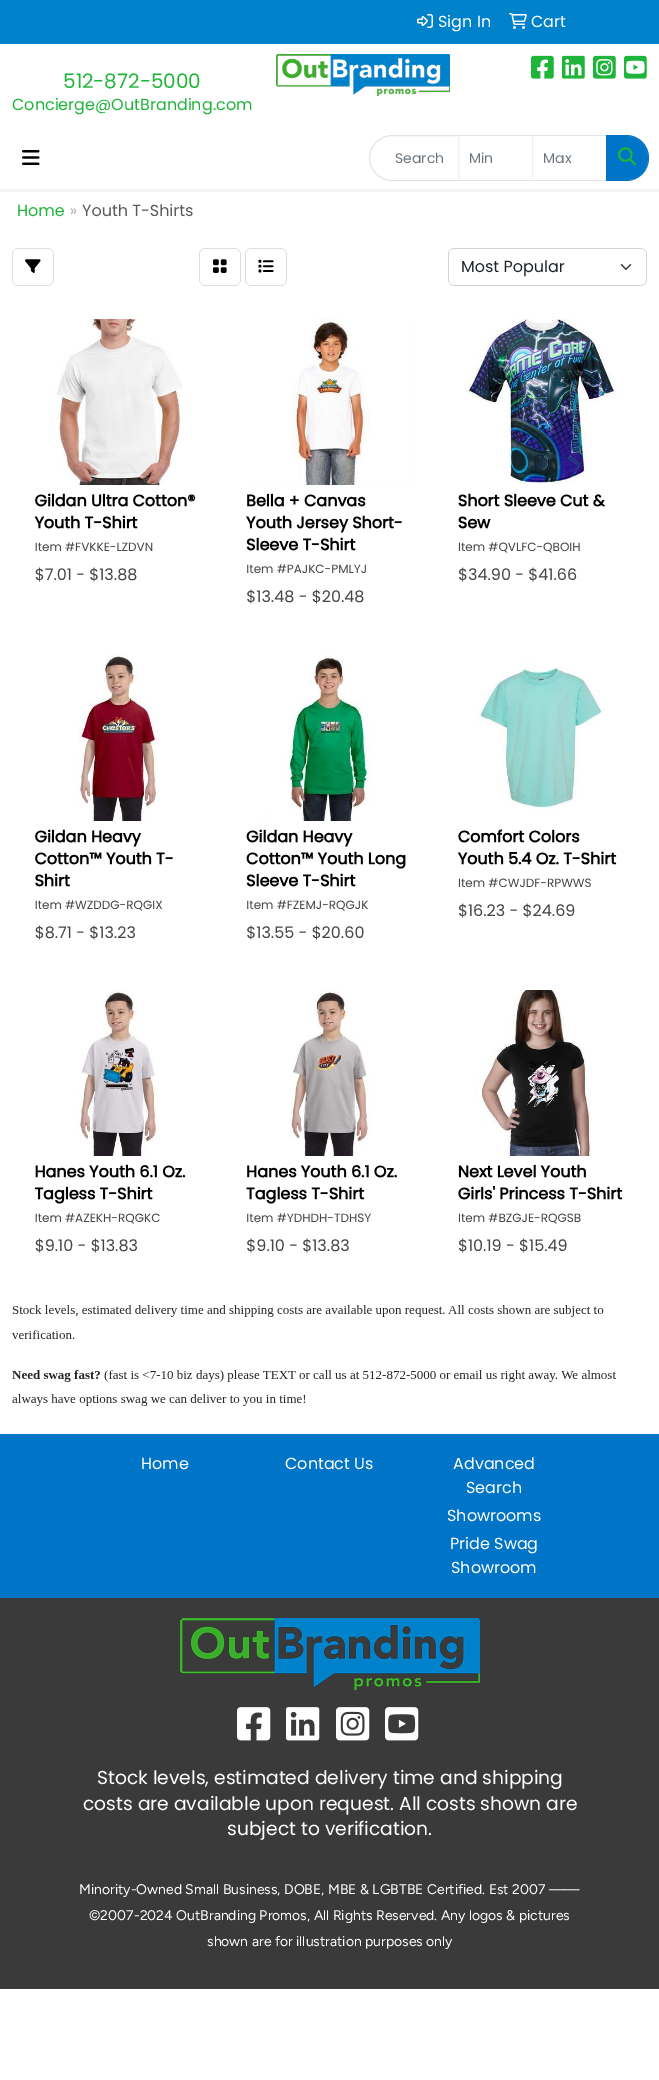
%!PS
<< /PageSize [659 2080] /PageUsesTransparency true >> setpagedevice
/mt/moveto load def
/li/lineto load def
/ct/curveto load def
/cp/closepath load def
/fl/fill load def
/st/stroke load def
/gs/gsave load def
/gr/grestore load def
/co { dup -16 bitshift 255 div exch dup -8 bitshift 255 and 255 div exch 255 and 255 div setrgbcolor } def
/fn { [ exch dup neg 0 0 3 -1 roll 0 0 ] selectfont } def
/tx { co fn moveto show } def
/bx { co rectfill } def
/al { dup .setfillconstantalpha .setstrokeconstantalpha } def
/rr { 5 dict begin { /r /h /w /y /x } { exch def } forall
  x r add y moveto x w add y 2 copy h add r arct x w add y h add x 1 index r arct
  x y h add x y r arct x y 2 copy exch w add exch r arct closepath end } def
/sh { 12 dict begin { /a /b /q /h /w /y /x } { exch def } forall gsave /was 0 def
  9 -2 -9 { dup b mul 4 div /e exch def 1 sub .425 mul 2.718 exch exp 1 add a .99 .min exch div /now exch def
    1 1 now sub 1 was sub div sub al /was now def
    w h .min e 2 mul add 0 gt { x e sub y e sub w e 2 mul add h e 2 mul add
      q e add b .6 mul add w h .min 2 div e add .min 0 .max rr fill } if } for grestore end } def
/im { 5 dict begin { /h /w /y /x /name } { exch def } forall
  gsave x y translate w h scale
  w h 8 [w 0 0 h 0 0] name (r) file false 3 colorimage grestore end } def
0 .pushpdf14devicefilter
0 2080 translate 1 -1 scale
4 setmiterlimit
0 0 659 2080 16#FFFFFF bx
0 0 659 44 16#0082CB bx
(media/1.raw) 417 14 16 14 im
(media/2.raw) 509 13 18 16 im
(media/3.raw) 276 54 174 42 im
(media/4.raw) 531 55 23 24 im
(media/5.raw) 562 55 23 24 im
(media/6.raw) 593 55 23 24 im
(media/7.raw) 624 55 23 24 im
gs
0 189 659 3 rectclip
16#000000 co
0 129 659 62 0 2 .07 sh
gr
(media/8.raw) 22 150 18 15 im
16#E4E4E4 co
392 135.5 mt 458.5 135.5 li 458.5 180.5 li 392 180.5 li 379.5 180.5 369.5 170.5 369.5 158 ct 369.5 145.5 379.5 135.5 392 135.5 ct cp st
458 135 149 1 16#E4E4E4 bx
458 180 149 1 16#E4E4E4 bx
458 135 1 46 16#EFEFEF bx
532 135 1 46 16#EFEFEF bx
16#0074C6 co
606 136 mt 626 136 li 638 136 648 146 648 158 ct 648 170 638 180 626 180 ct 606 180 li cp fl
606 135 mt 626 135 li 639 135 649 145 649 158 ct 649 171 639 181 626 181 ct 606 181 li cp 606 136 mt 626 136 li 638 136 648 146 648 158 ct 648 170 638 180 626 180 ct 606 180 li cp eofill
(media/9.raw) 618 147 18 19 im
(media/10.raw) 12 203 635 1203 im
0 1434 659 164 16#0074C6 bx
0 1598 659 391 16#3A3A3A bx
(media/11.raw) 180 1618 300 72 im
(media/12.raw) 237 1707 34 34 im
(media/13.raw) 286 1707 34 34 im
(media/14.raw) 336 1707 34 34 im
(media/15.raw) 385 1707 34 34 im
(Sign In) 438 27 /Poppins-Regular 16 16#FFFFFF tx
(Cart) 531 27 /Poppins-Regular 16 16#FFFFFF tx
(512-872-5000) 63 88 /Poppins-Regular 20 16#1EB53A tx
(Concierge@OutBranding.com) 12 110 /Poppins-Regular 16 16#1EB53A tx
(Search) 395 163 /Poppins-Regular 14 16#6C757D tx
(Min) 469 163 /Poppins-Regular 14 16#6C757D tx
(Max) 543 163 /Poppins-Regular 14 16#6C757D tx
(Home) 141 1469 /Poppins-Regular 16 16#FFFFFF tx
(Contact Us) 285 1469 /Poppins-Regular 16 16#FFFFFF tx
(Advanced) 453 1469 /Poppins-Regular 16 16#FFFFFF tx
(Search) 466 1493 /Poppins-Regular 16 16#FFFFFF tx
(Showrooms) 447 1521 /Poppins-Regular 16 16#FFFFFF tx
(Pride Swag) 450 1549 /Poppins-Regular 16 16#FFFFFF tx
(Showroom) 451 1573 /Poppins-Regular 16 16#FFFFFF tx
(Stock levels, estimated delivery time and shipping) 97 1784 /Poppins-Regular 18.7 16#FFFFFF tx
(costs are available upon request. All costs shown are) 83 1810 /Poppins-Regular 18.7 16#FFFFFF tx
(subject to verification.) 227 1835 /Poppins-Regular 18.7 16#FFFFFF tx
(Minority-Owned Small Business, DOBE, MBE & LGBTBE Certified. Est 2007 ——) 79 1894 /Figtree-Regular 14 16#FFFFFF tx
(©2007-2024 OutBranding Promos, All Rights Reserved. Any logos & pictures) 89 1920 /Figtree-Regular 14 16#FFFFFF tx
(shown are for illustration purposes only) 207 1946 /Figtree-Regular 14 16#FFFFFF tx
.poppdf14devicefilter showpage
